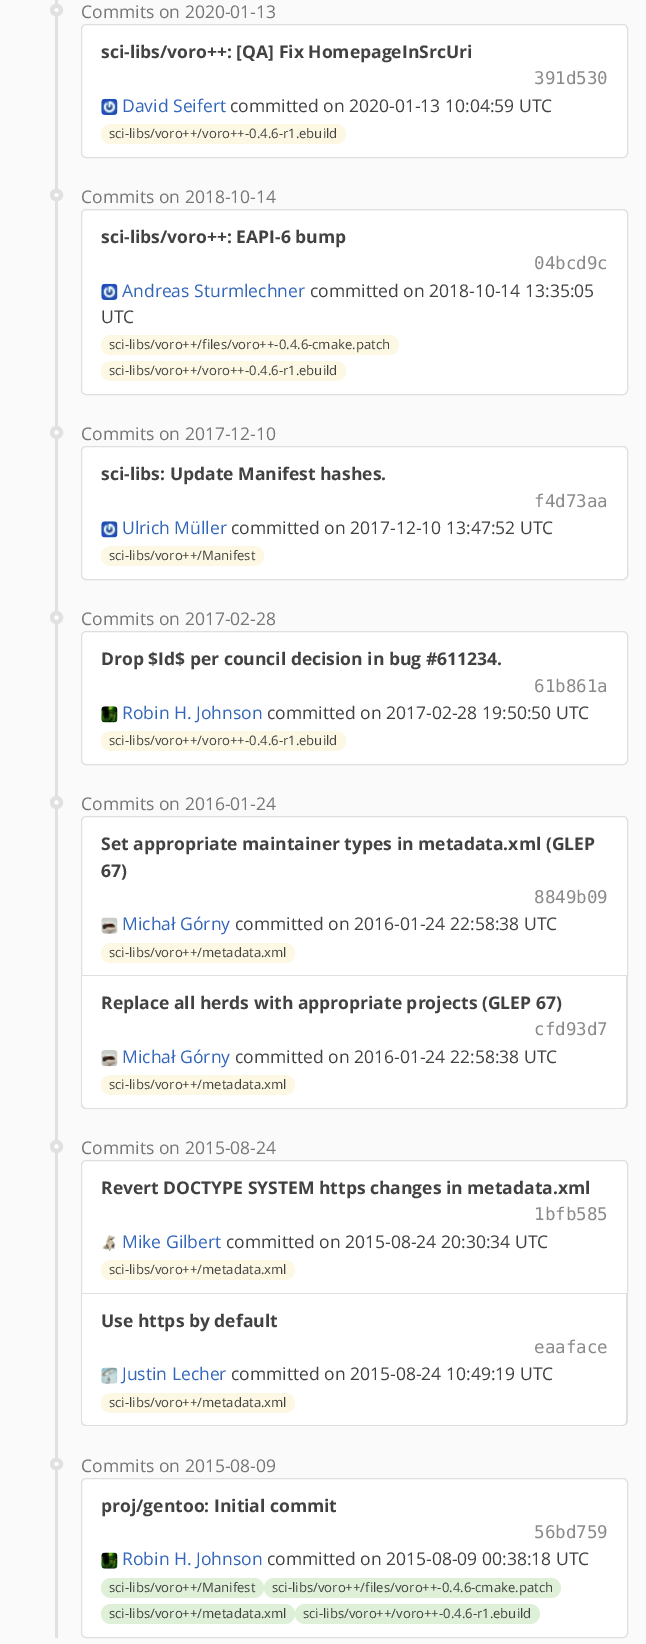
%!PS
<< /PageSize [646 1644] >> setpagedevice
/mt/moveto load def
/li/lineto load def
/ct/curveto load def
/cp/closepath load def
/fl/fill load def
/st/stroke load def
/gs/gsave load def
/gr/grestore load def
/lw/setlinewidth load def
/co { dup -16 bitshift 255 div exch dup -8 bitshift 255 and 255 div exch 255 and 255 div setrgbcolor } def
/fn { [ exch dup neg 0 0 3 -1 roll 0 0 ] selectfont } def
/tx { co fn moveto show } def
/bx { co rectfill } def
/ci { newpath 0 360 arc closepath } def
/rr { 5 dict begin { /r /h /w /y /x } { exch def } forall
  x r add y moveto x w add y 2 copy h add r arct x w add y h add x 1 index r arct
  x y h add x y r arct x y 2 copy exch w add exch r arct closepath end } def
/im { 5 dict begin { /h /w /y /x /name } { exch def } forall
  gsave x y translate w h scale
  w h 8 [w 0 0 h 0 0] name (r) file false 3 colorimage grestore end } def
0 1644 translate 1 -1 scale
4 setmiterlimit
0 0 646 1644 16#FAFAFA bx
55 0 3 1638 16#E1E1E1 bx
16#FFFFFF co
52 6 9 8 4 rr gs fl gr
16#E1E1E1 co
4 lw
st
16#FFFFFF co
81.5 24.5 546 133 4.5 rr gs fl gr
16#DFDFDF co
1 lw
st
(media/1.raw) 101 98 17 17 im
16#FCF8E3 co
101 124 245 20 10 rr fl
16#FFFFFF co
52 191 9 8 4 rr gs fl gr
16#E1E1E1 co
4 lw
st
16#FFFFFF co
81.5 209.5 546 185 4.5 rr gs fl gr
16#DFDFDF co
1 lw
st
(media/1.raw) 101 283 17 17 im
16#FCF8E3 co
101 335 298 20 10 rr fl
101 361 245 20 10 rr fl
16#FFFFFF co
56.5 432.5 4.5 ci gs fl gr
16#E1E1E1 co
4 lw
st
16#FFFFFF co
81.5 446.5 546 133 4.5 rr gs fl gr
16#DFDFDF co
1 lw
st
(media/2.raw) 101 521 17 17 im
16#FCF8E3 co
101 546 163 20 10 rr fl
16#FFFFFF co
56.5 617.5 4.5 ci gs fl gr
16#E1E1E1 co
4 lw
st
16#FFFFFF co
81.5 631.5 546 133 4.5 rr gs fl gr
16#DFDFDF co
1 lw
st
(media/3.raw) 101 706 17 17 im
16#FCF8E3 co
101 731 245 20 10 rr fl
16#FFFFFF co
56.5 802.5 4.5 ci gs fl gr
16#E1E1E1 co
4 lw
st
16#FFFFFF co
86 816.5 mt 623 816.5 li 625.5 816.5 627.5 818.5 627.5 821 ct 627.5 975.5 li 81.5 975.5 li 81.5 821 li 81.5 818.5 83.5 816.5 86 816.5 ct cp gs fl gr
16#DFDFDF co
1 lw
st
(media/4.raw) 101 917 17 17 im
16#FCF8E3 co
101 943 194 20 10 rr fl
16#FFFFFF co
81 976 mt 628 976 li 628 1104 li 628 1107 626 1109 623 1109 ct 86 1109 li 83 1109 81 1107 81 1104 ct cp fl
16#DFDFDF co
81 976 mt 628 976 li 628 1104 li 628 1107 625 1109 622 1109 ct 86 1109 li 83 1109 81 1107 81 1104 ct cp 82 976 mt 626 976 li 626 1104 li 626 1106 625 1108 622 1108 ct 86 1108 li 84 1108 82 1106 82 1104 ct cp eofill
(media/5.raw) 101 1050 17 17 im
16#FCF8E3 co
101 1075 194 20 10 rr fl
16#FFFFFF co
56.5 1146.5 4.5 ci gs fl gr
16#E1E1E1 co
4 lw
st
16#FFFFFF co
86 1160.5 mt 623 1160.5 li 625.5 1160.5 627.5 1162.5 627.5 1165 ct 627.5 1293.5 li 81.5 1293.5 li 81.5 1165 li 81.5 1162.5 83.5 1160.5 86 1160.5 ct cp gs fl gr
16#DFDFDF co
1 lw
st
(media/6.raw) 102 1235 14 17 im
16#FCF8E3 co
101 1260 194 20 10 rr fl
16#FFFFFF co
81 1294 mt 628 1294 li 628 1421 li 628 1424 626 1426 623 1426 ct 86 1426 li 83 1426 81 1424 81 1421 ct cp fl
16#DFDFDF co
81 1294 mt 628 1294 li 628 1421 li 628 1424 625 1426 622 1426 ct 86 1426 li 83 1426 81 1424 81 1421 ct cp 82 1294 mt 626 1294 li 626 1421 li 626 1423 625 1425 622 1425 ct 86 1425 li 84 1425 82 1423 82 1421 ct cp eofill
(media/7.raw) 101 1367 17 17 im
16#FCF8E3 co
101 1393 194 20 10 rr fl
16#FFFFFF co
52 1460 9 8 4 rr gs fl gr
16#E1E1E1 co
4 lw
st
16#FFFFFF co
81.5 1478.5 546 159 4.5 rr gs fl gr
16#DFDFDF co
1 lw
st
(media/8.raw) 101 1552 17 17 im
16#DFF0D8 co
101 1578 163 20 10 rr fl
264 1578 297 20 10 rr fl
101 1604 194 20 10 rr fl
295 1604 245 20 10 rr fl
(Commits on 2020-01-13) 81 18 /OpenSans-Regular 17.5 16#777777 tx
(sci-libs/voro++: [QA] Fix HomepageInSrcUri) 101 58 /OpenSans-Bold 17.5 16#424242 tx
(391d530) 534 84 /DejaVuSansMono-Regular 17.5 16#8A8A8A tx
(David Seifert) 122 112 /OpenSans-Regular 17.5 16#3366BB tx
(committed on 2020-01-13 10:04:59 UTC) 230 112 /OpenSans-Regular 17.5 16#424242 tx
(sci-libs/voro++/voro++-0.4.6-r1.ebuild) 109 138 /OpenSans-Regular 13.1 16#424242 tx
(Commits on 2018-10-14) 81 203 /OpenSans-Regular 17.5 16#777777 tx
(sci-libs/voro++: EAPI-6 bump) 101 243 /OpenSans-Bold 17.5 16#424242 tx
(04bcd9c) 534 269 /DejaVuSansMono-Regular 17.5 16#8A8A8A tx
(Andreas Sturmlechner) 122 297 /OpenSans-Regular 17.5 16#3366BB tx
(committed on 2018-10-14 13:35:05) 310 297 /OpenSans-Regular 17.5 16#424242 tx
(UTC) 101 323 /OpenSans-Regular 17.5 16#424242 tx
(sci-libs/voro++/files/voro++-0.4.6-cmake.patch) 109 349 /OpenSans-Regular 13.1 16#424242 tx
(sci-libs/voro++/voro++-0.4.6-r1.ebuild) 109 375 /OpenSans-Regular 13.1 16#424242 tx
(Commits on 2017-12-10) 81 440 /OpenSans-Regular 17.5 16#777777 tx
(sci-libs: Update Manifest hashes.) 101 480 /OpenSans-Bold 17.5 16#424242 tx
(f4d73aa) 534 507 /DejaVuSansMono-Regular 17.5 16#8A8A8A tx
(Ulrich Müller) 122 534 /OpenSans-Regular 17.5 16#3366BB tx
(committed on 2017-12-10 13:47:52 UTC) 231 534 /OpenSans-Regular 17.5 16#424242 tx
(sci-libs/voro++/Manifest) 109 560 /OpenSans-Regular 13.1 16#424242 tx
(Commits on 2017-02-28) 81 625 /OpenSans-Regular 17.5 16#777777 tx
(Drop $Id$ per council decision in bug #611234.) 101 665 /OpenSans-Bold 17.5 16#424242 tx
(61b861a) 534 692 /DejaVuSansMono-Regular 17.5 16#8A8A8A tx
(Robin H. Johnson) 122 719 /OpenSans-Regular 17.5 16#3366BB tx
(committed on 2017-02-28 19:50:50 UTC) 267 719 /OpenSans-Regular 17.5 16#424242 tx
(sci-libs/voro++/voro++-0.4.6-r1.ebuild) 109 745 /OpenSans-Regular 13.1 16#424242 tx
(Commits on 2016-01-24) 81 810 /OpenSans-Regular 17.5 16#777777 tx
(Set appropriate maintainer types in metadata.xml \(GLEP) 101 850 /OpenSans-Bold 17.5 16#424242 tx
(67\)) 101 877 /OpenSans-Bold 17.5 16#424242 tx
(8849b09) 534 903 /DejaVuSansMono-Regular 17.5 16#8A8A8A tx
(Michał Górny) 122 930 /OpenSans-Regular 17.5 16#3366BB tx
(committed on 2016-01-24 22:58:38 UTC) 235 930 /OpenSans-Regular 17.5 16#424242 tx
(sci-libs/voro++/metadata.xml) 109 957 /OpenSans-Regular 13.1 16#424242 tx
(Replace all herds with appropriate projects \(GLEP 67\)) 101 1009 /OpenSans-Bold 17.5 16#424242 tx
(cfd93d7) 534 1035 /DejaVuSansMono-Regular 17.5 16#8A8A8A tx
(Michał Górny) 122 1063 /OpenSans-Regular 17.5 16#3366BB tx
(committed on 2016-01-24 22:58:38 UTC) 235 1063 /OpenSans-Regular 17.5 16#424242 tx
(sci-libs/voro++/metadata.xml) 109 1089 /OpenSans-Regular 13.1 16#424242 tx
(Commits on 2015-08-24) 81 1154 /OpenSans-Regular 17.5 16#777777 tx
(Revert DOCTYPE SYSTEM https changes in metadata.xml) 101 1194 /OpenSans-Bold 17.5 16#424242 tx
(1bfb585) 534 1220 /DejaVuSansMono-Regular 17.5 16#8A8A8A tx
(Mike Gilbert) 122 1248 /OpenSans-Regular 17.5 16#3366BB tx
(committed on 2015-08-24 20:30:34 UTC) 226 1248 /OpenSans-Regular 17.5 16#424242 tx
(sci-libs/voro++/metadata.xml) 109 1274 /OpenSans-Regular 13.1 16#424242 tx
(Use https by default) 101 1327 /OpenSans-Bold 17.5 16#424242 tx
(eaaface) 534 1353 /DejaVuSansMono-Regular 17.5 16#8A8A8A tx
(Justin Lecher) 122 1380 /OpenSans-Regular 17.5 16#3366BB tx
(committed on 2015-08-24 10:49:19 UTC) 231 1380 /OpenSans-Regular 17.5 16#424242 tx
(sci-libs/voro++/metadata.xml) 109 1407 /OpenSans-Regular 13.1 16#424242 tx
(Commits on 2015-08-09) 81 1472 /OpenSans-Regular 17.5 16#777777 tx
(proj/gentoo: Initial commit) 101 1512 /OpenSans-Bold 17.5 16#424242 tx
(56bd759) 534 1538 /DejaVuSansMono-Regular 17.5 16#8A8A8A tx
(Robin H. Johnson) 122 1565 /OpenSans-Regular 17.5 16#3366BB tx
(committed on 2015-08-09 00:38:18 UTC) 267 1565 /OpenSans-Regular 17.5 16#424242 tx
(sci-libs/voro++/Manifest) 109 1592 /OpenSans-Regular 13.1 16#424242 tx
(sci-libs/voro++/files/voro++-0.4.6-cmake.patch) 272 1592 /OpenSans-Regular 13.1 16#424242 tx
(sci-libs/voro++/metadata.xml) 109 1618 /OpenSans-Regular 13.1 16#424242 tx
(sci-libs/voro++/voro++-0.4.6-r1.ebuild) 303 1618 /OpenSans-Regular 13.1 16#424242 tx
showpage
